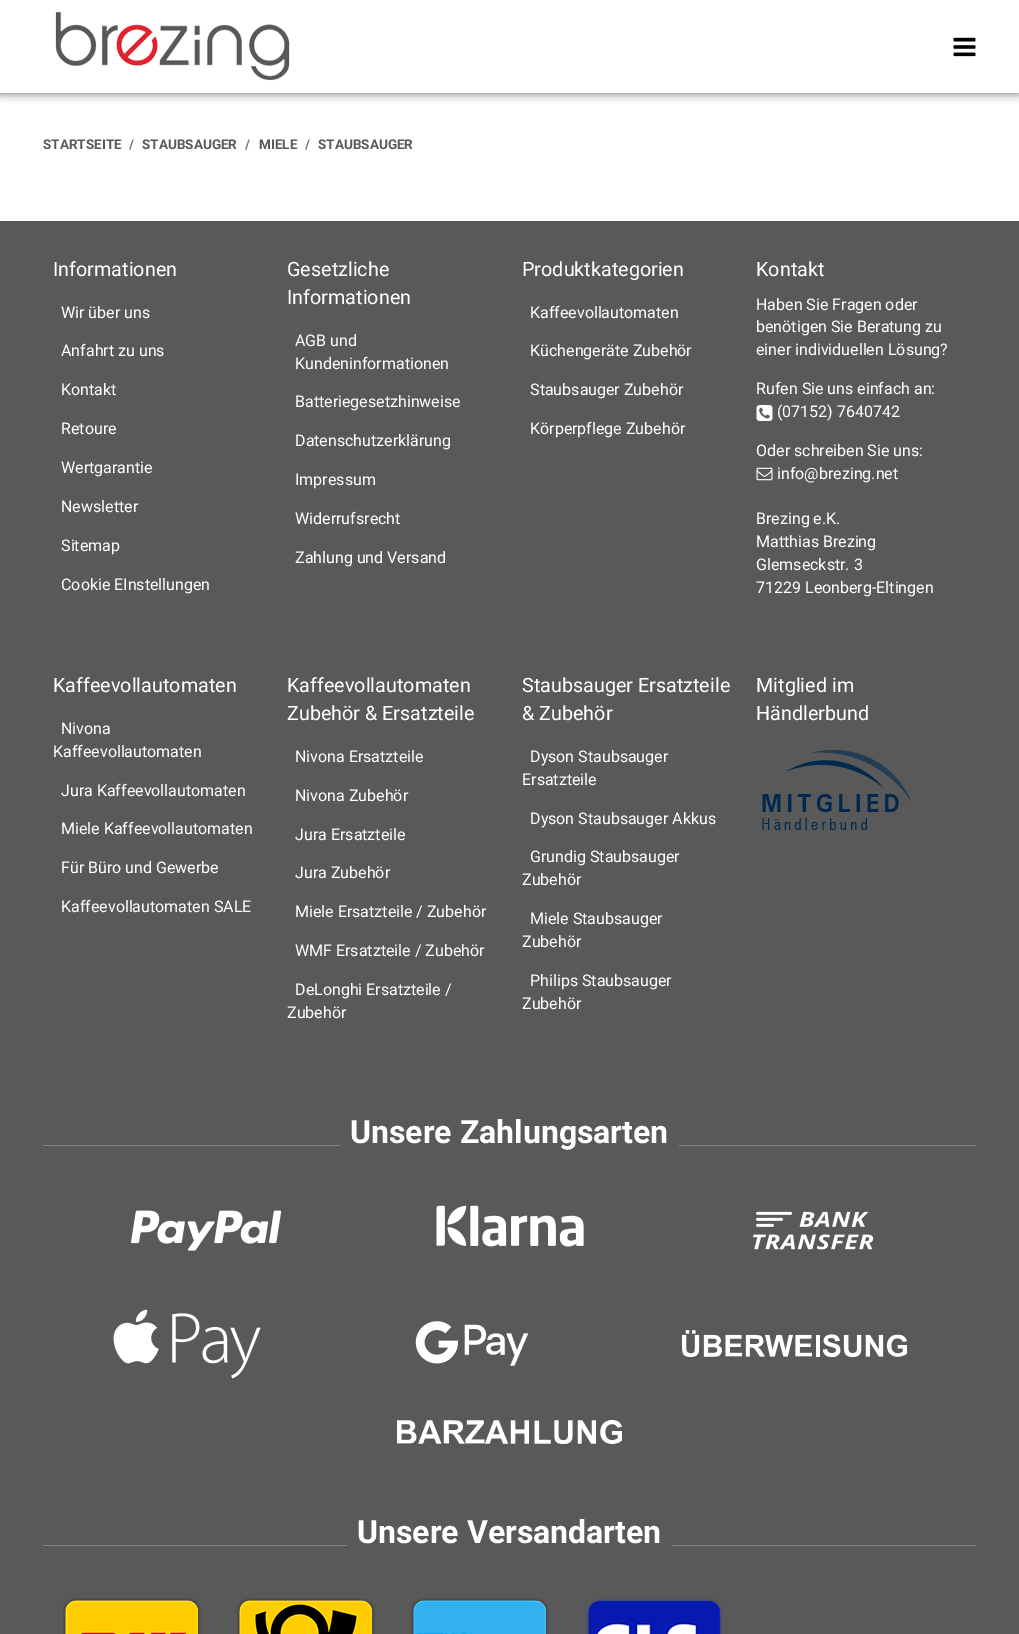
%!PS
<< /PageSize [1019 1634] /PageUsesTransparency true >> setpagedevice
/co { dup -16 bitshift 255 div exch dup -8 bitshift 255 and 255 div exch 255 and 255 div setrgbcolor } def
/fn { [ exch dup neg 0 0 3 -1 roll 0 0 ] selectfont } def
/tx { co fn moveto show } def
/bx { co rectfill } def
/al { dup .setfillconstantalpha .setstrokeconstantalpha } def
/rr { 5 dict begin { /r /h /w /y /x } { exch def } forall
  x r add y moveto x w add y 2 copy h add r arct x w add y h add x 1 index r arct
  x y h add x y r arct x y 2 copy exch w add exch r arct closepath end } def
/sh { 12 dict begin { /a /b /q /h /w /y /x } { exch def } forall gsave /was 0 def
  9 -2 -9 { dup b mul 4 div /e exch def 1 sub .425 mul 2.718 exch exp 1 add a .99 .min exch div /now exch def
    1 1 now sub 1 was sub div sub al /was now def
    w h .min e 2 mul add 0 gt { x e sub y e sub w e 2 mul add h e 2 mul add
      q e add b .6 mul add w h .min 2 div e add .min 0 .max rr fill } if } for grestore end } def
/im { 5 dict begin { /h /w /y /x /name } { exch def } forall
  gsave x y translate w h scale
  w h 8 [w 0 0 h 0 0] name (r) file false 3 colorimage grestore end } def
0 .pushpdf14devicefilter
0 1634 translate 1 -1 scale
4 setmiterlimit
0 0 1019 1634 16#FFFFFF bx
16#595959 co
0 0 1019 93 0 5 1 sh
0 0 1019 93 16#FFFFFF bx
(media/1.raw) 55 11 235 70 im
(media/2.raw) 953 37 23 20 im
0 221 1019 1413 16#595959 bx
(media/3.raw) 756 405 17 16 im
(media/4.raw) 756 467 17 14 im
(media/5.raw) 762 749 149 81 im
43 1145 933 1 16#838383 bx
340 1145 339 1 16#595959 bx
(media/6.raw) 131 1210 150 41 im
(media/7.raw) 436 1205 148 42 im
(media/8.raw) 753 1211 121 39 im
(media/9.raw) 113 1309 148 70 im
(media/10.raw) 415 1321 114 45 im
(media/11.raw) 682 1330 225 28 im
(media/12.raw) 397 1420 225 24 im
43 1545 933 1 16#838383 bx
347 1545 325 1 16#595959 bx
(media/13.raw) 63 1598 138 36 im
(media/14.raw) 237 1598 138 36 im
(media/15.raw) 411 1598 138 36 im
(media/16.raw) 586 1598 137 36 im
(STARTSEITE) 43 149 /Roboto-Bold 13.5 16#595959 tx
(/) 129 149 /Roboto-Bold 13.5 16#6C757D tx
(STAUBSAUGER) 142 149 /Roboto-Bold 13.5 16#595959 tx
(/) 245 149 /Roboto-Bold 13.5 16#6C757D tx
(MIELE) 259 149 /Roboto-Bold 13.5 16#595959 tx
(/) 305 149 /Roboto-Bold 13.5 16#6C757D tx
(STAUBSAUGER) 318 149 /Roboto-Bold 13.5 16#595959 tx
(Informationen) 53 276 /Roboto-Regular 19.75 16#FFFFFF tx
(Wir über uns) 61 318 /Roboto-Regular 16 16#FFFFFF tx
(Anfahrt zu uns) 61 356 /Roboto-Regular 16 16#FFFFFF tx
(Kontakt) 61 395 /Roboto-Regular 16 16#FFFFFF tx
(Retoure) 61 434 /Roboto-Regular 16 16#FFFFFF tx
(Wertgarantie) 61 473 /Roboto-Regular 16 16#FFFFFF tx
(Newsletter) 61 512 /Roboto-Regular 16 16#FFFFFF tx
(Sitemap) 61 551 /Roboto-Regular 16 16#FFFFFF tx
(Cookie EInstellungen) 61 590 /Roboto-Regular 16 16#FFFFFF tx
(Gesetzliche) 287 276 /Roboto-Regular 19.75 16#FFFFFF tx
(Informationen) 287 304 /Roboto-Regular 19.75 16#FFFFFF tx
(AGB und) 295 346 /Roboto-Regular 16 16#FFFFFF tx
(Kundeninformationen) 295 369 /Roboto-Regular 16 16#FFFFFF tx
(Batteriegesetzhinweise) 295 407 /Roboto-Regular 16 16#FFFFFF tx
(Datenschutzerklärung) 295 446 /Roboto-Regular 16 16#FFFFFF tx
(Impressum) 295 485 /Roboto-Regular 16 16#FFFFFF tx
(Widerrufsrecht) 295 524 /Roboto-Regular 16 16#FFFFFF tx
(Zahlung und Versand) 295 563 /Roboto-Regular 16 16#FFFFFF tx
(Produktkategorien) 522 276 /Roboto-Regular 19.75 16#FFFFFF tx
(Kaffeevollautomaten) 530 318 /Roboto-Regular 16 16#FFFFFF tx
(Küchengeräte Zubehör) 530 356 /Roboto-Regular 16 16#FFFFFF tx
(Staubsauger Zubehör) 530 395 /Roboto-Regular 16 16#FFFFFF tx
(Körperpflege Zubehör) 530 434 /Roboto-Regular 16 16#FFFFFF tx
(Kontakt) 756 276 /Roboto-Regular 19.75 16#FFFFFF tx
(Haben Sie Fragen oder) 756 310 /Roboto-Regular 16 16#FFFFFF tx
(benötigen Sie Beratung zu) 756 332 /Roboto-Regular 16 16#FFFFFF tx
(einer individuellen Lösung?) 756 355 /Roboto-Regular 16 16#FFFFFF tx
(Rufen Sie uns einfach an:) 756 394 /Roboto-Regular 16 16#FFFFFF tx
(\(07152\) 7640742) 777 417 /Roboto-Regular 16 16#FFFFFF tx
(Oder schreiben Sie uns:) 756 456 /Roboto-Regular 16 16#FFFFFF tx
(info@brezing.net) 777 479 /Roboto-Regular 16 16#FFFFFF tx
(Brezing e.K.) 756 524 /Roboto-Regular 16 16#FFFFFF tx
(Matthias Brezing) 756 547 /Roboto-Regular 16 16#FFFFFF tx
(Glemseckstr. 3) 756 570 /Roboto-Regular 16 16#FFFFFF tx
(71229 Leonberg-Eltingen) 756 593 /Roboto-Regular 16 16#FFFFFF tx
(Kaffeevollautomaten) 53 692 /Roboto-Regular 19.75 16#FFFFFF tx
(Nivona) 61 734 /Roboto-Regular 16 16#FFFFFF tx
(Kaffeevollautomaten) 53 757 /Roboto-Regular 16 16#FFFFFF tx
(Jura Kaffeevollautomaten) 61 796 /Roboto-Regular 16 16#FFFFFF tx
(Miele Kaffeevollautomaten) 61 834 /Roboto-Regular 16 16#FFFFFF tx
(Für Büro und Gewerbe) 61 873 /Roboto-Regular 16 16#FFFFFF tx
(Kaffeevollautomaten SALE) 61 912 /Roboto-Regular 16 16#FFFFFF tx
(Kaffeevollautomaten) 287 692 /Roboto-Regular 19.75 16#FFFFFF tx
(Zubehör & Ersatzteile) 287 720 /Roboto-Regular 19.75 16#FFFFFF tx
(Nivona Ersatzteile) 295 762 /Roboto-Regular 16 16#FFFFFF tx
(Nivona Zubehör) 295 801 /Roboto-Regular 16 16#FFFFFF tx
(Jura Ersatzteile) 295 840 /Roboto-Regular 16 16#FFFFFF tx
(Jura Zubehör) 295 878 /Roboto-Regular 16 16#FFFFFF tx
(Miele Ersatzteile / Zubehör) 295 917 /Roboto-Regular 16 16#FFFFFF tx
(WMF Ersatzteile / Zubehör) 295 956 /Roboto-Regular 16 16#FFFFFF tx
(DeLonghi Ersatzteile /) 295 995 /Roboto-Regular 16 16#FFFFFF tx
(Zubehör) 287 1018 /Roboto-Regular 16 16#FFFFFF tx
(Staubsauger Ersatzteile) 522 692 /Roboto-Regular 19.75 16#FFFFFF tx
(& Zubehör) 522 720 /Roboto-Regular 19.75 16#FFFFFF tx
(Dyson Staubsauger) 530 762 /Roboto-Regular 16 16#FFFFFF tx
(Ersatzteile) 522 785 /Roboto-Regular 16 16#FFFFFF tx
(Dyson Staubsauger Akkus) 530 824 /Roboto-Regular 16 16#FFFFFF tx
(Grundig Staubsauger) 530 862 /Roboto-Regular 16 16#FFFFFF tx
(Zubehör) 522 885 /Roboto-Regular 16 16#FFFFFF tx
(Miele Staubsauger) 530 924 /Roboto-Regular 16 16#FFFFFF tx
(Zubehör) 522 947 /Roboto-Regular 16 16#FFFFFF tx
(Philips Staubsauger) 530 986 /Roboto-Regular 16 16#FFFFFF tx
(Zubehör) 522 1009 /Roboto-Regular 16 16#FFFFFF tx
(Mitglied im) 756 692 /Roboto-Regular 19.75 16#FFFFFF tx
(Händlerbund) 756 720 /Roboto-Regular 19.75 16#FFFFFF tx
(Unsere Zahlungsarten) 350 1143 /Roboto-Bold 32 16#FFFFFF tx
(Unsere Versandarten) 357 1543 /Roboto-Bold 32 16#FFFFFF tx
.poppdf14devicefilter showpage
